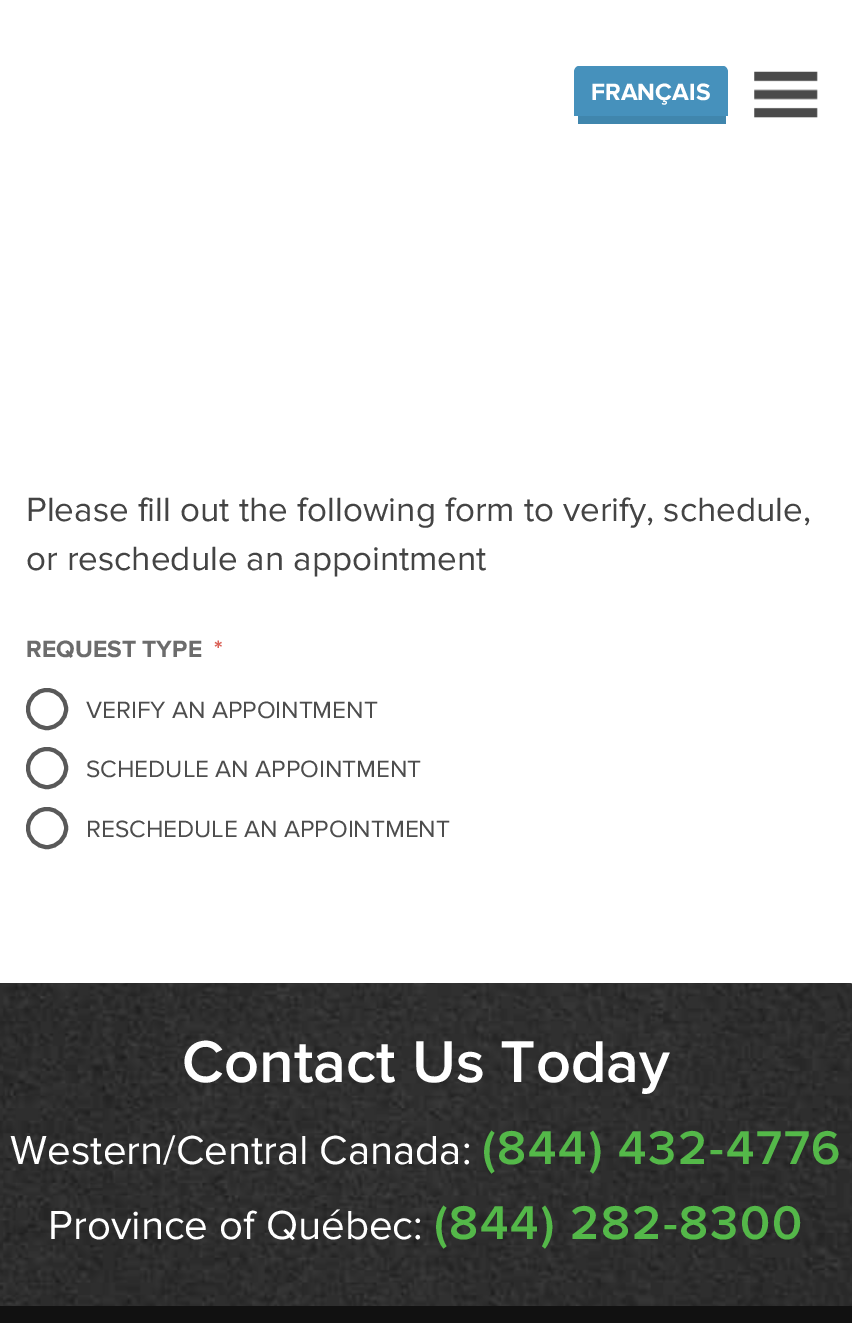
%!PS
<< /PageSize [852 1323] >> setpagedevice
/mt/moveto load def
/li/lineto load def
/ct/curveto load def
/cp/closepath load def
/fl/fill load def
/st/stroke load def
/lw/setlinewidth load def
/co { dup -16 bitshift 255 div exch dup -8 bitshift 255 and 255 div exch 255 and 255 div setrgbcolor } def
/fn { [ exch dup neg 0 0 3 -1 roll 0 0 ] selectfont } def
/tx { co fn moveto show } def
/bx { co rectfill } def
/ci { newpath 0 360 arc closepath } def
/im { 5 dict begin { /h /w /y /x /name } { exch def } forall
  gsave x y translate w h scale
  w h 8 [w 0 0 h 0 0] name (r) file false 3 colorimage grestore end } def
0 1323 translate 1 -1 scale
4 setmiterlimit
0 0 852 1323 16#FFFFFF bx
16#4691BC co
579 66 mt 723 66 li 726 66 728 69 728 72 ct 728 116 li 574 116 li 574 72 li 574 69 576 66 579 66 ct cp fl
578 116 148 8 16#4086AD bx
(media/1.raw) 754 71 64 47 im
16#595959 co
4 lw
47 709 19 ci st
47 768 19 ci st
47 828 19 ci st
(media/2.raw) 0 983 852 323 im
0 1306 852 17 16#111111 bx
(FRANÇAIS) 591 100 /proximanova-Bold 24.5 16#FFFFFF tx
(Please fill out the following form to verify, schedule,) 26 521 /proximanova-Regular 35 16#444444 tx
(or reschedule an appointment) 26 570 /proximanova-Regular 35 16#444444 tx
(REQUEST TYPE) 26 657 /proximanova-Bold 24.5 16#6C6C6C tx
(*) 214 657 /proximanova-Bold 24.5 16#DA6258 tx
(VERIFY AN APPOINTMENT) 86 718 /proximanova-Regular 24.5 16#4D4D4D tx
(SCHEDULE AN APPOINTMENT) 86 777 /proximanova-Regular 24.5 16#4D4D4D tx
(RESCHEDULE AN APPOINTMENT) 86 837 /proximanova-Regular 24.5 16#4D4D4D tx
(Contact Us Today) 182 1082 /proximanova-SemiBold 61.25 16#FFFFFF tx
(Western/Central Canada:) 10 1164 /proximanova-Regular 42 16#FFFFFF tx
/proximanova-SemiBold 49 fn
16#54B849 co
482 1164 mt 1.75 0 (\(844\) 432-4776) ashow
(Province of Québec:) 48 1239 /proximanova-Regular 42 16#FFFFFF tx
/proximanova-SemiBold 49 fn
16#54B849 co
434 1239 mt 1.75 0 (\(844\) 282-8300) ashow
showpage
